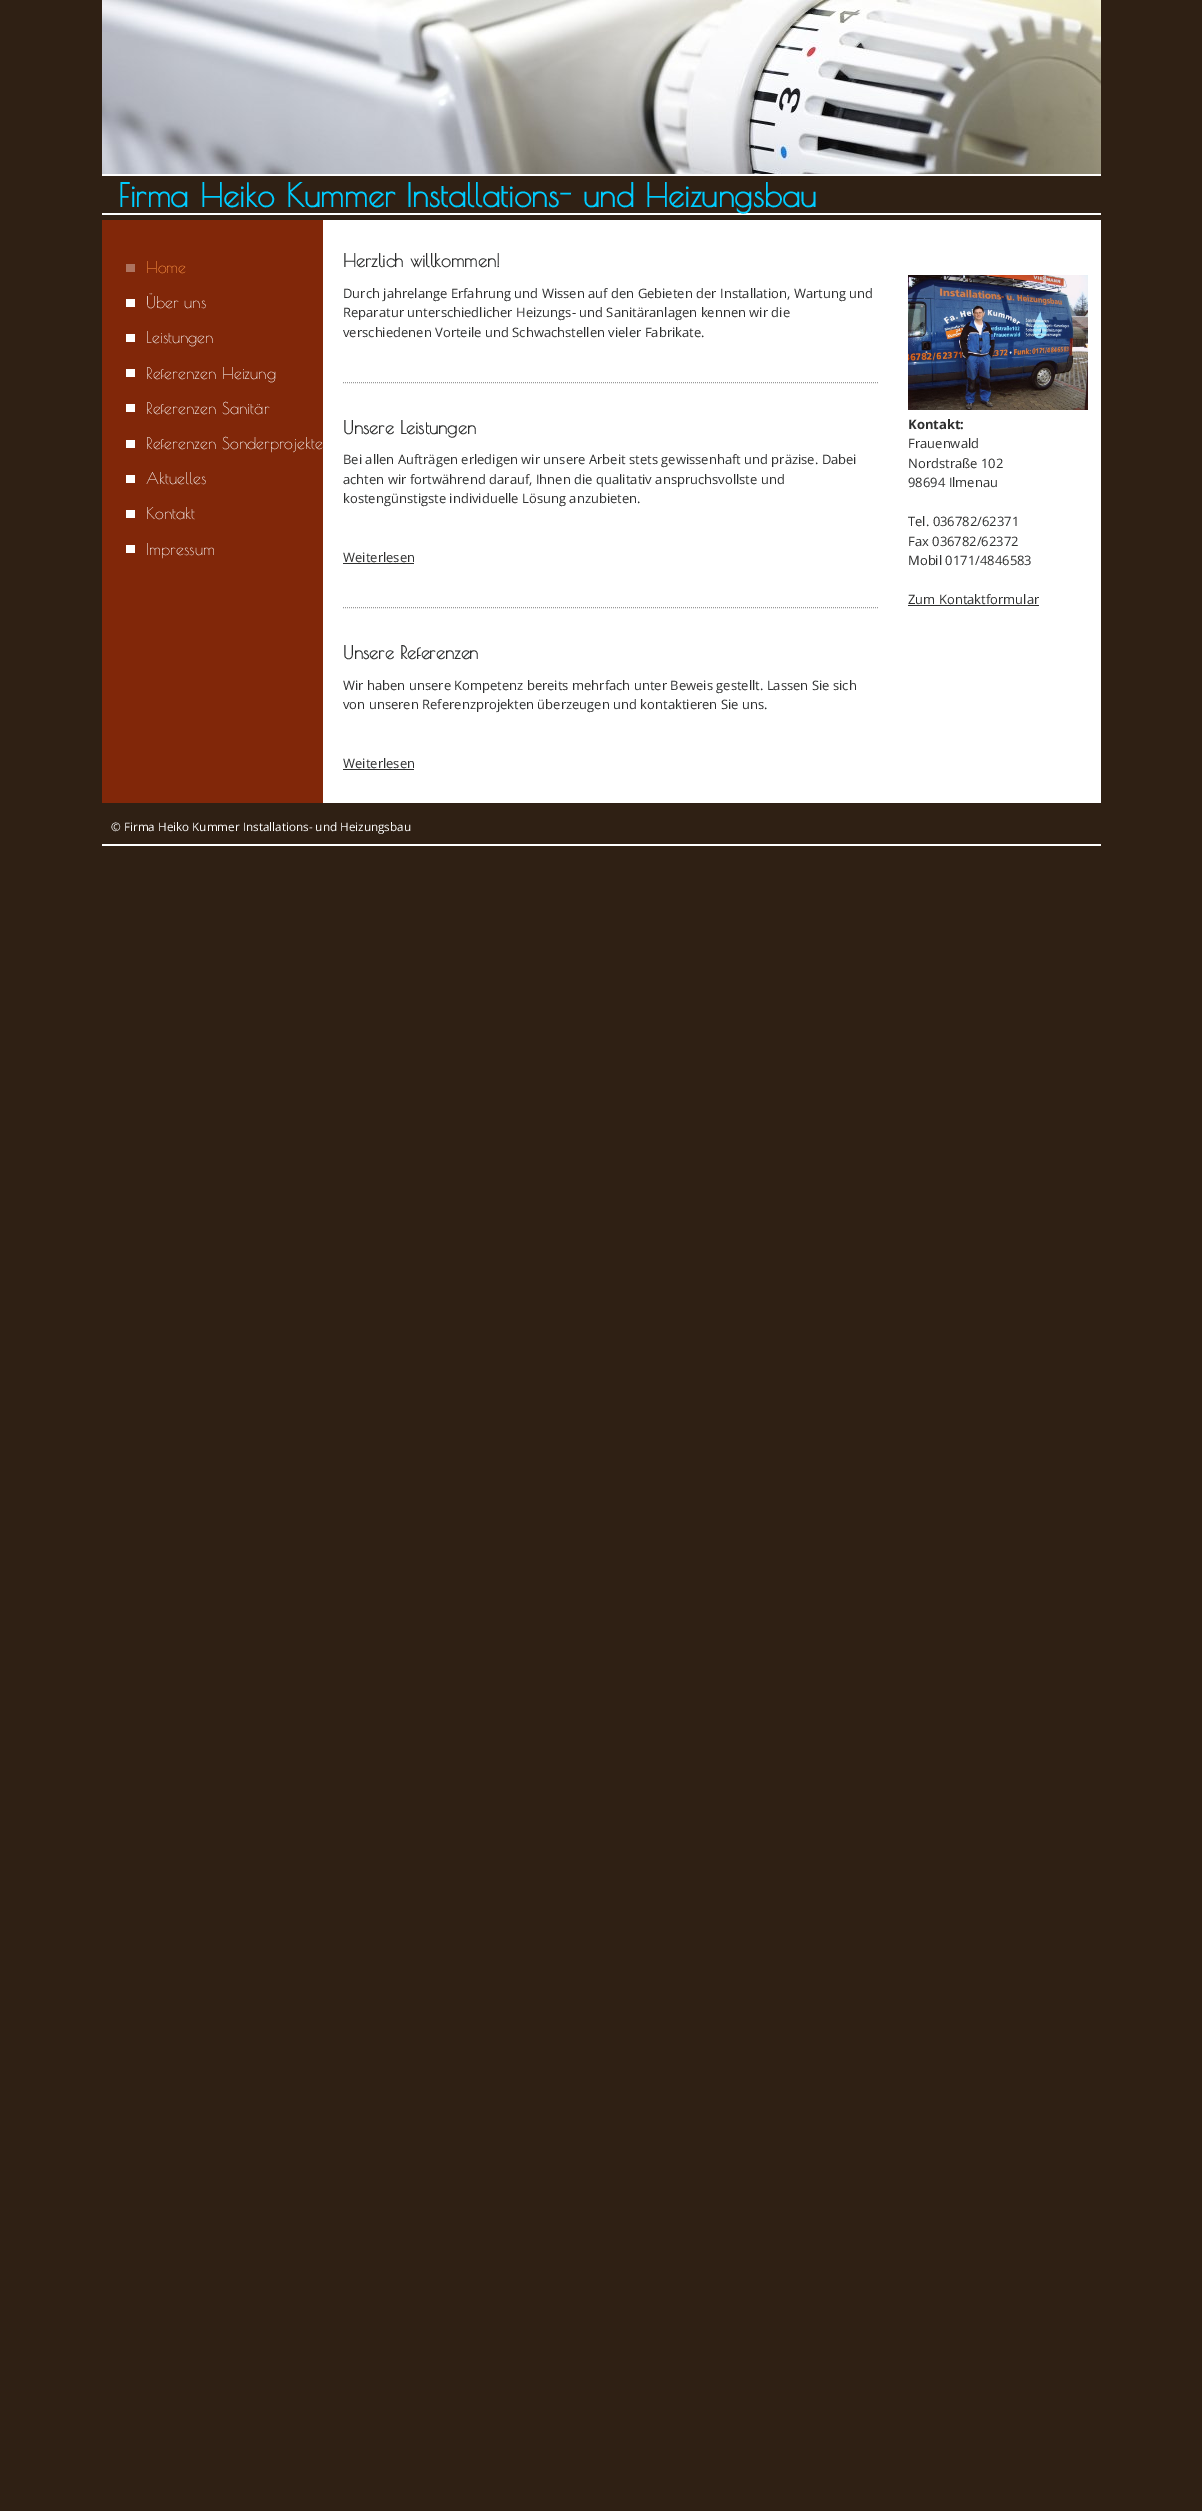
%!PS
<< /PageSize [1202 2511] >> setpagedevice
/mt/moveto load def
/li/lineto load def
/st/stroke load def
/co { dup -16 bitshift 255 div exch dup -8 bitshift 255 and 255 div exch 255 and 255 div setrgbcolor } def
/fn { [ exch dup neg 0 0 3 -1 roll 0 0 ] selectfont } def
/tx { co fn moveto show } def
/bx { co rectfill } def
/im { 5 dict begin { /h /w /y /x /name } { exch def } forall
  gsave x y translate w h scale
  w h 8 [w 0 0 h 0 0] name (r) file false 3 colorimage grestore end } def
0 2511 translate 1 -1 scale
4 setmiterlimit
0 0 1202 2511 16#2F2014 bx
(media/1.raw) 102 0 999 174 im
(media/2.raw) 102 174 999 41 im
102 220 221 583 16#812709 bx
126 264 9 8 16#AD735F bx
126 299 9 8 16#FFFFFF bx
126 334 9 8 16#FFFFFF bx
126 369 9 8 16#FFFFFF bx
126 404 9 8 16#FFFFFF bx
126 440 9 8 16#FFFFFF bx
126 475 9 8 16#FFFFFF bx
126 510 9 8 16#FFFFFF bx
126 545 9 8 16#FFFFFF bx
323 220 778 583 16#FFFFFF bx
16#999999 co
[1 1] 0 setdash
343 382.5 mt 878 382.5 li st
343 563 71 1 16#2E2F2F bx
16#999999 co
343 607.5 mt 878 607.5 li st
343 769 71 1 16#2E2F2F bx
(media/3.raw) 908 275 180 135 im
908 605 131 1 16#2E2F2F bx
102 844 999 2 16#FFFFFF bx
(Firma Heiko Kummer Installations- und Heizungsbau) 118 207 /PoiretOne-Bold 32 16#00CCFF tx
(Home) 146 273 /PoiretOne-Regular 16 16#FE9544 tx
(Über uns) 146 308 /PoiretOne-Regular 16 16#FFFFFF tx
(Leistungen) 146 343 /PoiretOne-Regular 16 16#FFFFFF tx
(Referenzen Heizung) 146 379 /PoiretOne-Regular 16 16#FFFFFF tx
(Referenzen Sanitär) 146 414 /PoiretOne-Regular 16 16#FFFFFF tx
(Referenzen Sonderprojekte) 146 449 /PoiretOne-Regular 16 16#FFFFFF tx
(Aktuelles) 146 484 /PoiretOne-Regular 16 16#FFFFFF tx
(Kontakt) 146 519 /PoiretOne-Regular 16 16#FFFFFF tx
(Impressum) 146 555 /PoiretOne-Regular 16 16#FFFFFF tx
(Herzlich willkommen!) 343 267 /PoiretOne-Bold 18 16#2E2F2F tx
(Durch jahrelange Erfahrung und Wissen auf den Gebieten der Installation, Wartung und) 343 298 /OpenSans-Regular 13 16#2E2F2F tx
(Reparatur unterschiedlicher Heizungs- und Sanitäranlagen kennen wir die) 343 317 /OpenSans-Regular 13 16#2E2F2F tx
(verschiedenen Vorteile und Schwachstellen vieler Fabrikate.) 343 337 /OpenSans-Regular 13 16#2E2F2F tx
(Unsere Leistungen) 343 434 /PoiretOne-Bold 18 16#2E2F2F tx
(Bei allen Aufträgen erledigen wir unsere Arbeit stets gewissenhaft und präzise. Dabei) 343 464 /OpenSans-Regular 13 16#2E2F2F tx
(achten wir fortwährend darauf, Ihnen die qualitativ anspruchsvollste und) 343 484 /OpenSans-Regular 13 16#2E2F2F tx
(kostengünstigste individuelle Lösung anzubieten.) 343 503 /OpenSans-Regular 13 16#2E2F2F tx
(Weiterlesen) 343 562 /OpenSans-Regular 13 16#2E2F2F tx
(Unsere Referenzen) 343 659 /PoiretOne-Bold 18 16#2E2F2F tx
(Wir haben unsere Kompetenz bereits mehrfach unter Beweis gestellt. Lassen Sie sich) 343 690 /OpenSans-Regular 13 16#2E2F2F tx
(von unseren Referenzprojekten überzeugen und kontaktieren Sie uns.) 343 709 /OpenSans-Regular 13 16#2E2F2F tx
(Weiterlesen) 343 768 /OpenSans-Regular 13 16#2E2F2F tx
(Kontakt:) 908 429 /OpenSans-Bold 13 16#2E2F2F tx
(Frauenwald) 908 448 /OpenSans-Regular 13 16#2E2F2F tx
(Nordstraße 102) 908 468 /OpenSans-Regular 13 16#2E2F2F tx
(98694 Ilmenau) 908 487 /OpenSans-Regular 13 16#2E2F2F tx
(Tel. 036782/62371) 908 526 /OpenSans-Regular 13 16#2E2F2F tx
(Fax 036782/62372) 908 546 /OpenSans-Regular 13 16#2E2F2F tx
(Mobil 0171/4846583) 908 565 /OpenSans-Regular 13 16#2E2F2F tx
(Zum Kontaktformular) 908 604 /OpenSans-Regular 13 16#2E2F2F tx
(© Firma Heiko Kummer Installations- und Heizungsbau) 111 831 /OpenSans-Regular 11.7 16#FFFFFF tx
showpage
